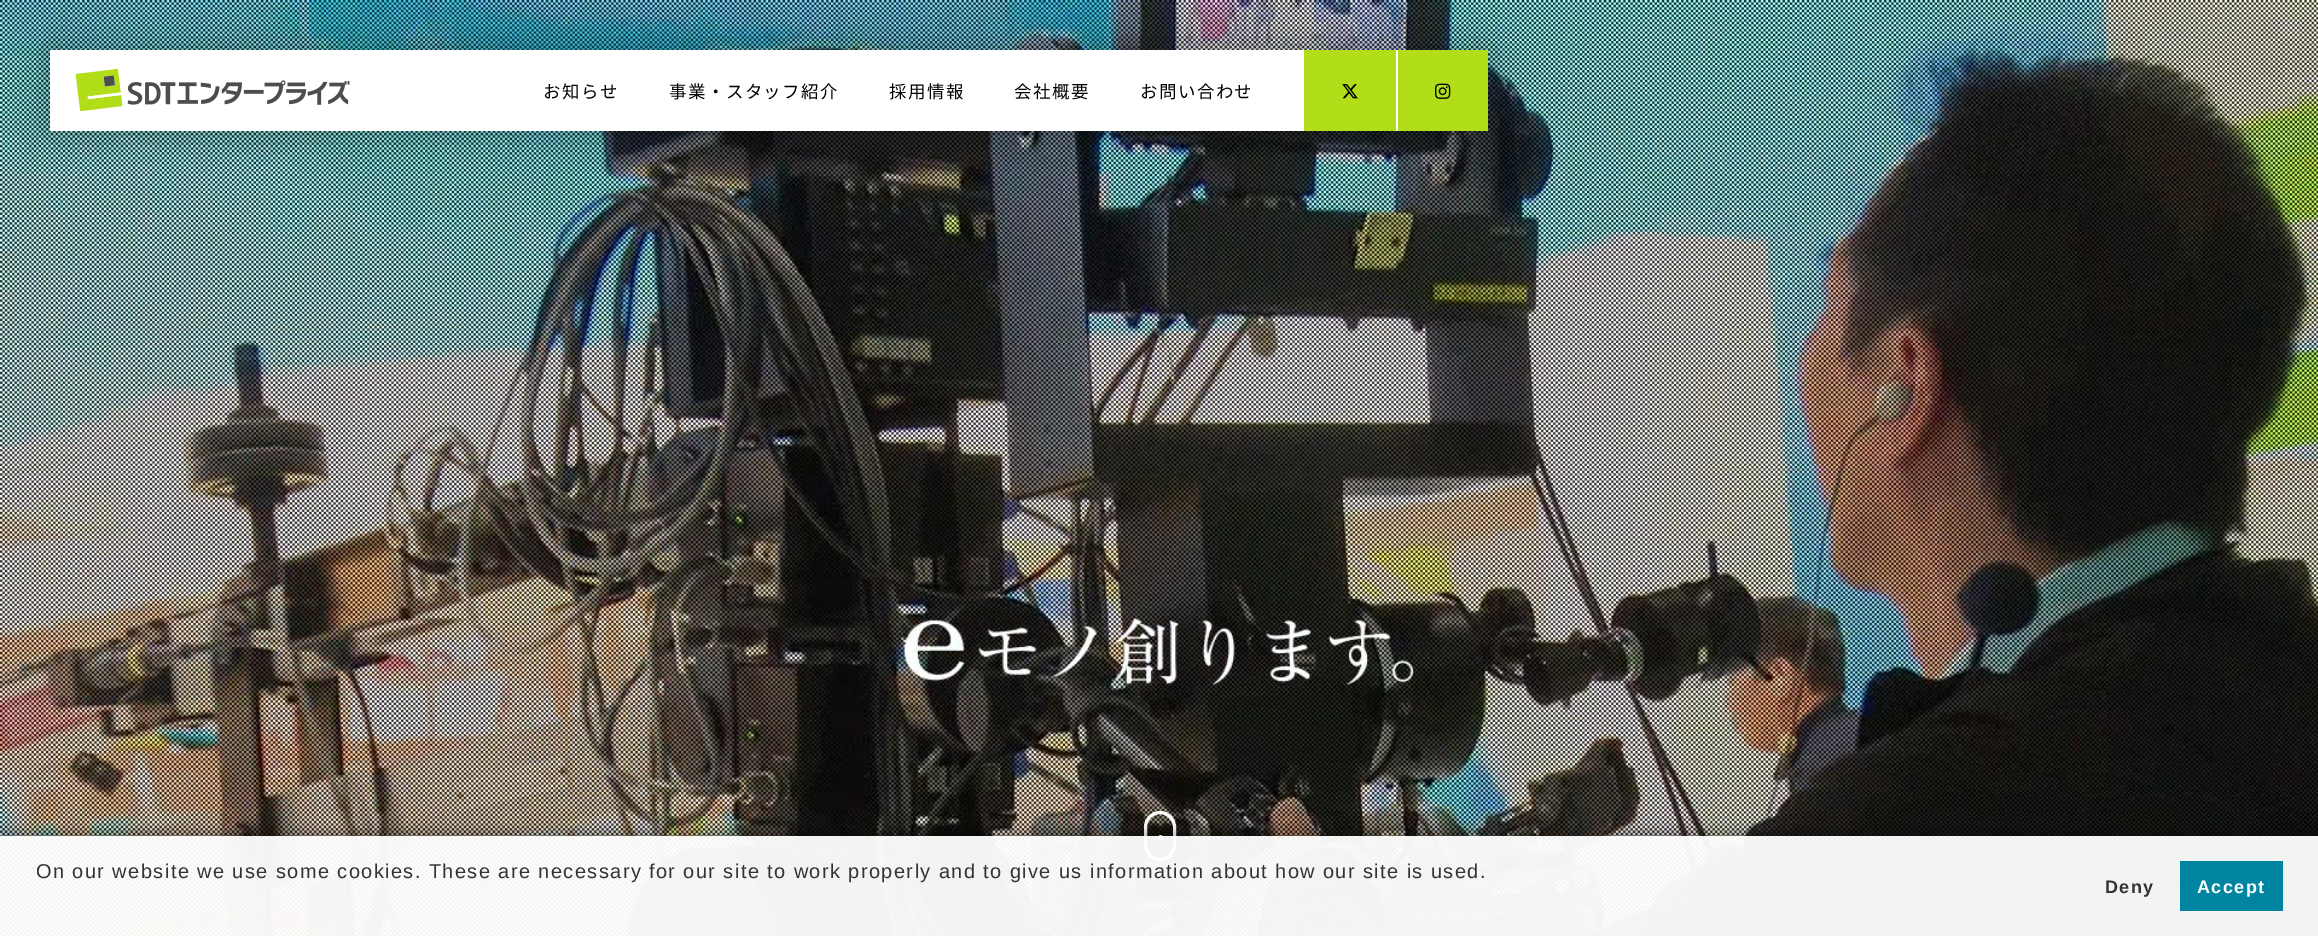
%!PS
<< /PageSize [2318 936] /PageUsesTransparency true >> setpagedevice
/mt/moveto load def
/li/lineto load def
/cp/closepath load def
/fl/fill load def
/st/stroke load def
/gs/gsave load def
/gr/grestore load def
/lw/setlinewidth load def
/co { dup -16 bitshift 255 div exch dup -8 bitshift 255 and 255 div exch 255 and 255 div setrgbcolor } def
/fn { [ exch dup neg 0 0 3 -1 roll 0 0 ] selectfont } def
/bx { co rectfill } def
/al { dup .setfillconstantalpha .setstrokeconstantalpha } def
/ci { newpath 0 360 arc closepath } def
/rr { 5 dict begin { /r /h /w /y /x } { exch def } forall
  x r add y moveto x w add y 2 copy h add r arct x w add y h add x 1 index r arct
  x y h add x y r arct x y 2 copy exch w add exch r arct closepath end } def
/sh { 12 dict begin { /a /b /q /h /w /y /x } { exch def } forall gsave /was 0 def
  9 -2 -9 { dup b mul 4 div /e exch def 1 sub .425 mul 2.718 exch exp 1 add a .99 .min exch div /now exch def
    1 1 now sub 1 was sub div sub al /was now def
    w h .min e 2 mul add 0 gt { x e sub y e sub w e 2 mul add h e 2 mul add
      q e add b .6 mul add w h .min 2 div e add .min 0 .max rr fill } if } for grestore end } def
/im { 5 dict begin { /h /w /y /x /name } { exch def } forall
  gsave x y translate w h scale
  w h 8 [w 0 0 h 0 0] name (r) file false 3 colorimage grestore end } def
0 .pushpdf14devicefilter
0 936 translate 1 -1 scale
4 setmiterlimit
0 0 2318 936 16#FFFFFF bx
(media/1.raw) 0 0 2318 936 im
3 lw
1145.5 812.5 29 47 14.5 rr st
1160.5 837.5 2.5 ci fl
16#000000 co
50 50 1438 81 0 19 .3 sh
50 50 1348 81 16#FFFFFF bx
(media/2.raw) 75 69 275 42 im
1304 50 92 81 16#B1DE19 bx
(media/3.raw) 1342 84 16 15 im
1398 50 90 81 16#B1DE19 bx
(media/4.raw) 1435 83 16 16 im
gs
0 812 mt 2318 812 li 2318 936 li 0 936 li cp 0 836 mt 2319 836 li 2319 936 li 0 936 li cp eoclip newpath
16#000000 co
0 831 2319 100 0 6 .3 sh
gr
0.95 al
0 836 2318 100 16#FFFFFF bx
1 al
2180 861 103 50 16#0085A1 bx
/NotoSansJP-Regular 17.5 fn
16#000000 co
543 98 mt 1.4 0 (お知らせ) ashow
669 98 mt 1.4 0 (事業・スタッフ紹介) ashow
889 98 mt 1.4 0 (採用情報) ashow
1014 98 mt 1.4 0 (会社概要) ashow
1140 98 mt 1.4 0 (お問い合わせ) ashow
/LiberationSans-Regular 20 fn
16#333333 co
36 878 mt 1.4 0 (On our website we use some cookies. These are necessary for our site to work properly and to give us information about how our site is used.) ashow
/LiberationSans-Bold 18 fn
2105 893 mt 1.4 0 (Deny) ashow
16#FFFFFF co
2197 893 mt 1.4 0 (Accept) ashow
.poppdf14devicefilter showpage
